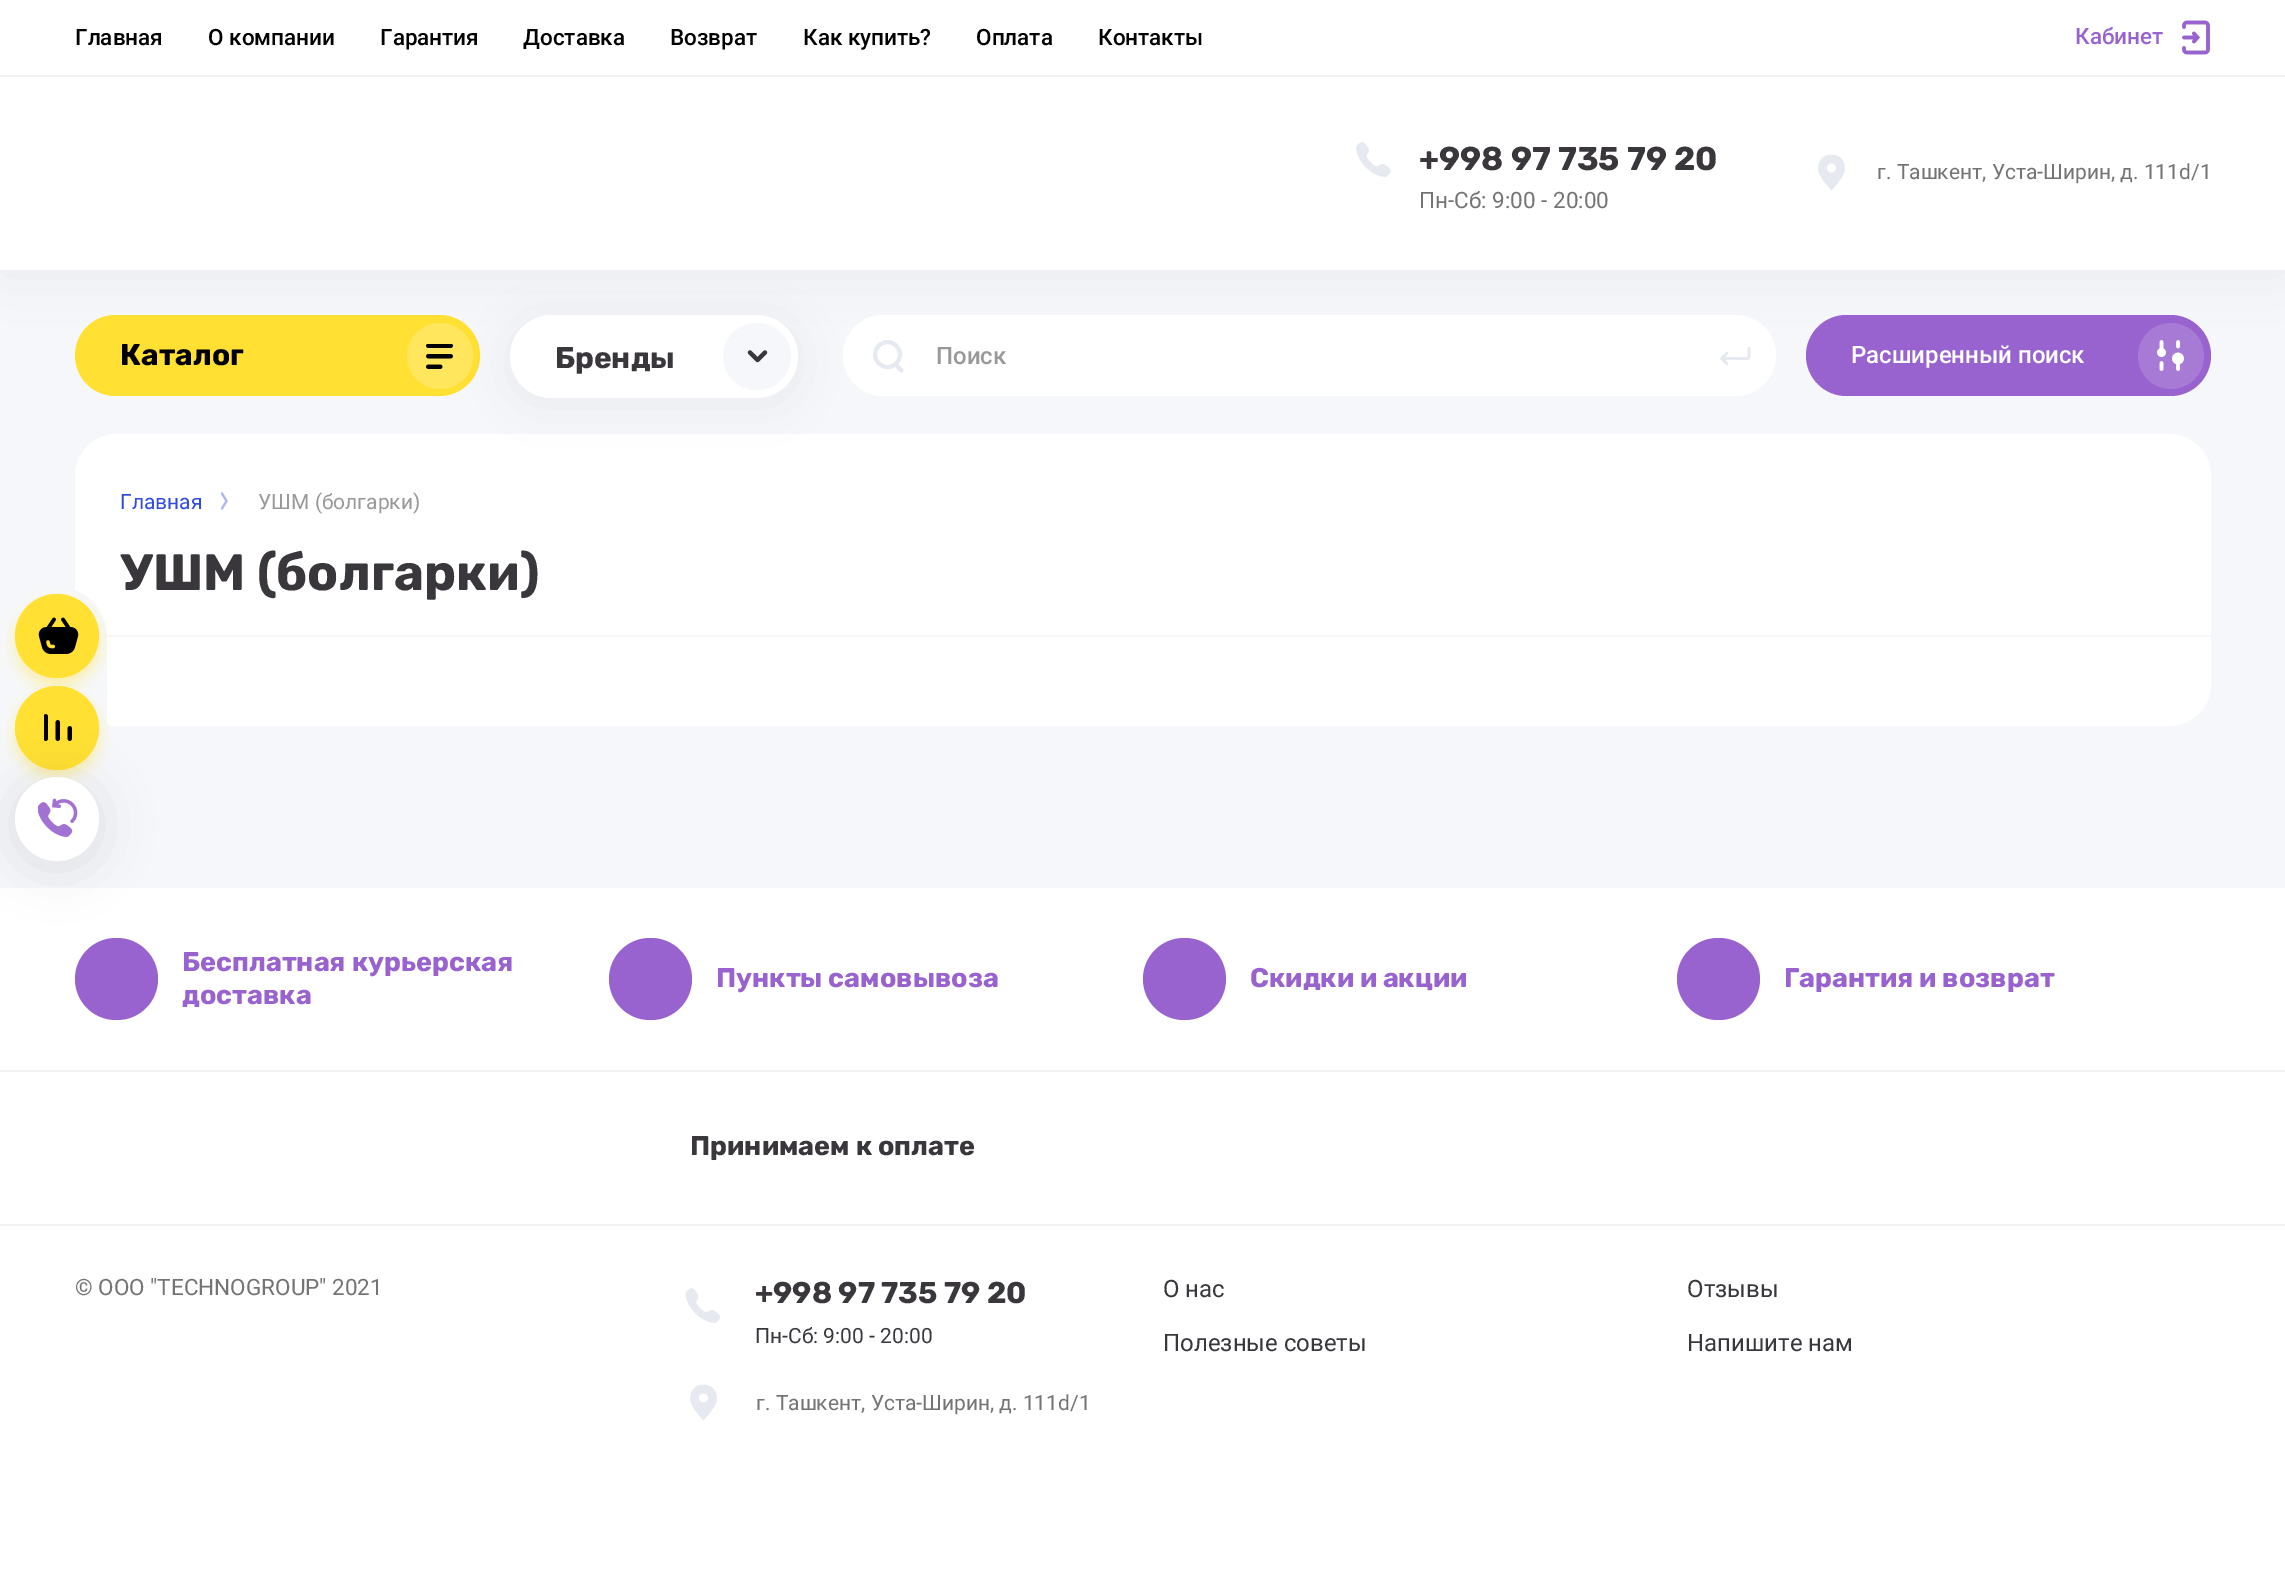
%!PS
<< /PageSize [2285 1574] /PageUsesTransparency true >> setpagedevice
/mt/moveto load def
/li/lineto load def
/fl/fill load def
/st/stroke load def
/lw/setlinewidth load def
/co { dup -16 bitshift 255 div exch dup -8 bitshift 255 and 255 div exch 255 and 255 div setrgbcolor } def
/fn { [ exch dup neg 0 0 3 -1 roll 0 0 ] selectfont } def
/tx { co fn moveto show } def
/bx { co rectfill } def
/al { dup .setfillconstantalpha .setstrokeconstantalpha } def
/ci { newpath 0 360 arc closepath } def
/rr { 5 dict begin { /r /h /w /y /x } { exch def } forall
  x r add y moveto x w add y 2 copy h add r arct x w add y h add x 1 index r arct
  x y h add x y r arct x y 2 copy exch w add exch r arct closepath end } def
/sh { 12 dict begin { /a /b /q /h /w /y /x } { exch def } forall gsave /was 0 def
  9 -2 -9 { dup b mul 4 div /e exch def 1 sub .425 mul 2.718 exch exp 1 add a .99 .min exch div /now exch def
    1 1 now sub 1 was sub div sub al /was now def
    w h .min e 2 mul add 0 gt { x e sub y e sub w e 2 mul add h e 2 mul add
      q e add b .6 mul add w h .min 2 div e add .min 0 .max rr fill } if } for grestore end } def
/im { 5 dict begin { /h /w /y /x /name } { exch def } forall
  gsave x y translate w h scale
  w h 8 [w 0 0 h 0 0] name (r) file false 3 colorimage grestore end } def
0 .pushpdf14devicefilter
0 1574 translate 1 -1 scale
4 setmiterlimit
0 0 2285 1574 16#F6F7FB bx
16#000000 co
0 77 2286 195 0 30 .05 sh
0 75 2285 2 16#F2F2F2 bx
0 0 2285 75 16#FFFFFF bx
(media/1.raw) 2182 20 28 35 im
0 77 2285 193 16#FFFFFF bx
(media/2.raw) 1356 142 35 35 im
(media/3.raw) 1818 154 27 37 im
16#FFE033 co
75 315 405 81 40.5 rr fl
16#FFE65C co
440 356 33 ci fl
(media/4.raw) 426 344 27 25 im
16#FFFFFF co
843 315 933 81 40.5 rr fl
16#E7E9F0 co
4 lw
887.5 354.5 12.5 ci st
16#FFFFFF co
75 434 2136 292 42 rr fl
16#000000 co
510 321 288 83 41.5 25.5 .06 sh
16#FFFFFF co
510 315 288 83 41.5 rr fl
16#F6F7FB co
723 323 68 67 33.5 rr fl
(media/5.raw) 747 350 21 13 im
16#E7E9F0 co
3.9 lw
1 setlinecap
895.5 364.5 mt 901.5 370.5 li st
(media/6.raw) 1719 347 32 18 im
16#9863CE co
1806 315 405 81 40.5 rr fl
16#A77AD5 co
2171 356 33 ci fl
(media/7.raw) 2157 340 27 31 im
98 635 2113 2 16#F6F7FB bx
(media/8.raw) 221 492 7 18 im
0.95 al
8 587 99 282 49.5 rr fl
1 al
16#FFE033 co
15 602 84 84 42 7.5 .4 sh
57 636 42 ci fl
(media/9.raw) 38 617 41 37 im
15 693 84 84 42 7.5 .4 sh
57 728 42 ci fl
(media/10.raw) 44 714 28 27 im
0 888 2285 182 16#FFFFFF bx
16#9863CE co
75 938 83 82 41 rr fl
16#000000 co
15 783 84 84 42 25.5 .1 sh
16#FFFFFF co
57 819 42 ci fl
(media/11.raw) 38 798 40 39 im
16#9863CE co
609 938 83 82 41 rr fl
1143 938 83 82 41 rr fl
1677 938 83 82 41 rr fl
0 1072 2285 152 16#FFFFFF bx
0 1070 2285 2 16#F2F2F2 bx
0 1224 2285 2 16#F2F2F2 bx
0 1226 2285 348 16#FFFFFF bx
(media/12.raw) 685 1288 35 35 im
(media/3.raw) 690 1384 27 37 im
(Главная) 75 45 /Roboto-Medium 22.5 16#000000 tx
(О компании) 208 45 /Roboto-Medium 22.5 16#000000 tx
(Гарантия) 380 45 /Roboto-Medium 22.5 16#000000 tx
(Доставка) 523 45 /Roboto-Medium 22.5 16#000000 tx
(Возврат) 670 45 /Roboto-Medium 22.5 16#000000 tx
(Как купить?) 803 45 /Roboto-Medium 22.5 16#000000 tx
(Оплата) 976 45 /Roboto-Medium 22.5 16#000000 tx
(Контакты) 1098 45 /Roboto-Medium 22.5 16#000000 tx
(Кабинет) 2075 44 /Roboto-Medium 22.5 16#9863CE tx
(+998 97 735 79 20) 1419 170 /Rubik-Bold 33 16#39363C tx
(Пн-Cб: 9:00 - 20:00) 1419 208 /Roboto-Regular 22.5 16#747474 tx
(г. Ташкент, Уста-Ширин, д. 111d/1) 1877 179 /Roboto-Regular 21 16#747474 tx
(Каталог) 120 365 /Rubik-Bold 30 16#000000 tx
(Бренды) 555 368 /Rubik-Bold 30 16#39363C tx
(Поиск) 936 364 /Roboto-Medium 24 16#999999 tx
(Расширенный поиск) 1851 363 /Roboto-Medium 24 16#FFFFFF tx
(Главная) 120 509 /Roboto-Regular 21 16#304CDC tx
(УШМ \(болгарки\)) 258 509 /Roboto-Regular 21 16#999999 tx
(УШМ \(болгарки\)) 120 590 /Rubik-Bold 51 16#39363C tx
(Бесплатная курьерская) 182 971 /Rubik-Bold 27 16#9863CE tx
(доставка) 182 1004 /Rubik-Bold 27 16#9863CE tx
(Пункты самовывоза) 716 987 /Rubik-Bold 27 16#9863CE tx
(Скидки и акции) 1250 987 /Rubik-Bold 27 16#9863CE tx
(Гарантия и возврат) 1784 987 /Rubik-Bold 27 16#9863CE tx
(Принимаем к оплате) 690 1155 /Rubik-Bold 27 16#39363C tx
(© OOO "TECHNOGROUP" 2021) 75 1295 /Roboto-Regular 22.5 16#747474 tx
(+998 97 735 79 20) 755 1303 /Rubik-Bold 30 16#39363C tx
(Пн-Cб: 9:00 - 20:00) 755 1343 /Roboto-Regular 21 16#39363C tx
(г. Ташкент, Уста-Ширин, д. 111d/1) 756 1410 /Roboto-Regular 21 16#747474 tx
(О нас) 1163 1297 /Roboto-Regular 24 16#39363C tx
(Отзывы) 1687 1297 /Roboto-Regular 24 16#39363C tx
(Полезные советы) 1163 1351 /Roboto-Regular 24 16#39363C tx
(Напишите нам) 1687 1351 /Roboto-Regular 24 16#39363C tx
.poppdf14devicefilter showpage
